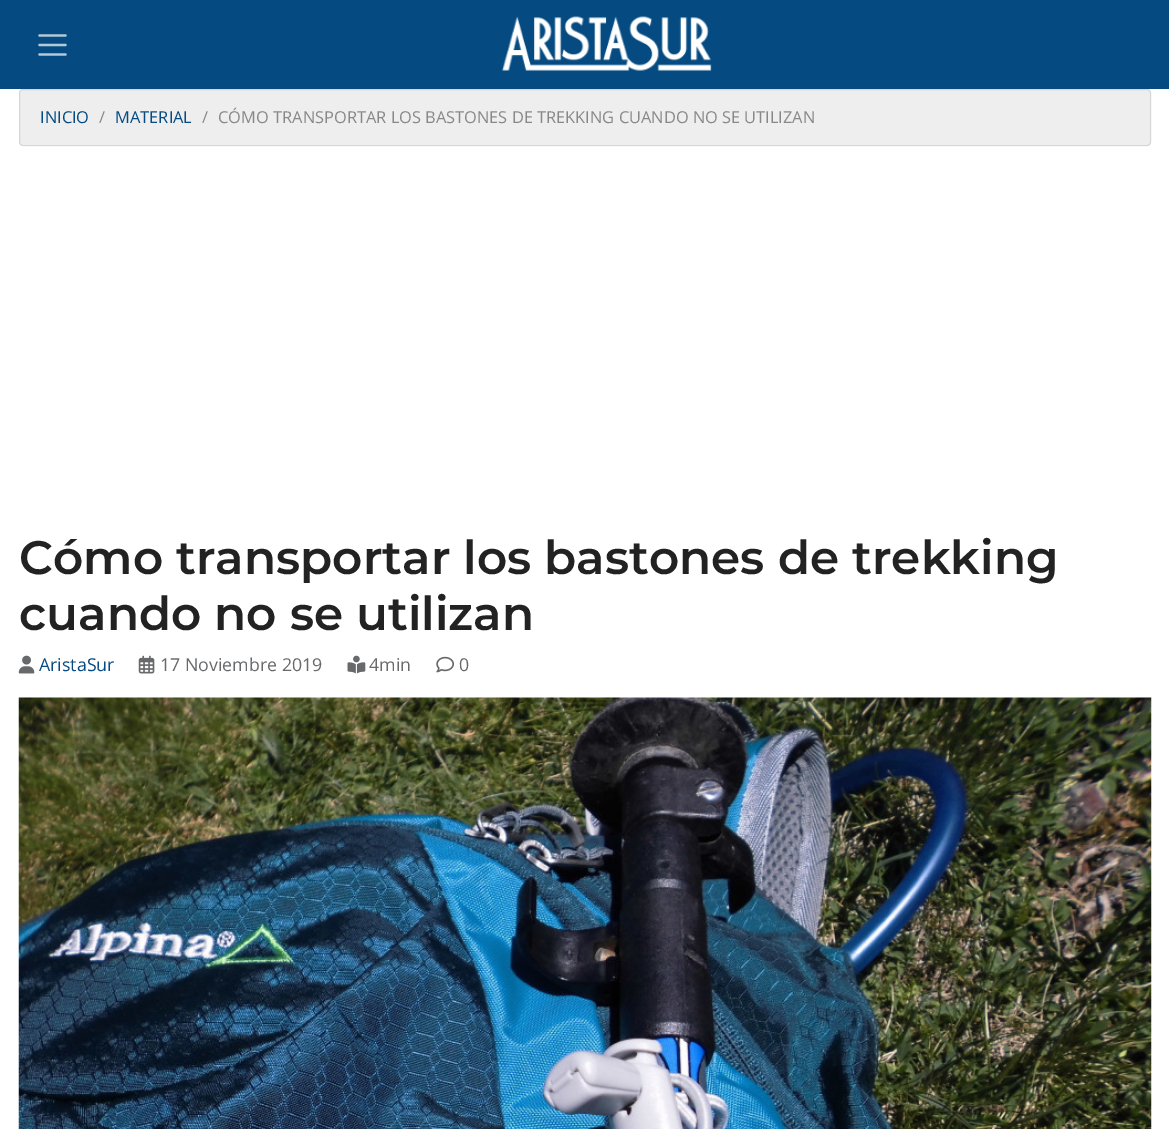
%!PS
<< /PageSize [1169 1129] /PageUsesTransparency true >> setpagedevice
/mt/moveto load def
/li/lineto load def
/fl/fill load def
/st/stroke load def
/lw/setlinewidth load def
/co { dup -16 bitshift 255 div exch dup -8 bitshift 255 and 255 div exch 255 and 255 div setrgbcolor } def
/fn { [ exch dup neg 0 0 3 -1 roll 0 0 ] selectfont } def
/tx { co fn moveto show } def
/bx { co rectfill } def
/al { dup .setfillconstantalpha .setstrokeconstantalpha } def
/rr { 5 dict begin { /r /h /w /y /x } { exch def } forall
  x r add y moveto x w add y 2 copy h add r arct x w add y h add x 1 index r arct
  x y h add x y r arct x y 2 copy exch w add exch r arct closepath end } def
/im { 5 dict begin { /h /w /y /x /name } { exch def } forall
  gsave x y translate w h scale
  w h 8 [w 0 0 h 0 0] name (r) file false 3 colorimage grestore end } def
0 .pushpdf14devicefilter
0 1129 translate 1 -1 scale
4 setmiterlimit
0 0 1169 1129 16#FFFFFF bx
0 0 1169 89 16#054B81 bx
16#B4C9D9 co
2.3 lw
1 setlinecap
39.5 35.5 mt 65.5 35.5 li 39.5 45 mt 65.5 45 li 39.5 54.5 mt 65.5 54.5 li st
(media/1.raw) 502 16 210 55 im
16#EEEEEE co
19 89 1132 57 4 rr fl
0.1 al
16#000000 co
1 lw
0 setlinecap
19.5 89.5 1131 56 3.5 rr st
1 al
(media/2.raw) 18 655 17 19 im
(media/3.raw) 138 655 17 19 im
(media/4.raw) 347 655 19 19 im
(media/5.raw) 436 656 18 17 im
(media/6.raw) 18 697 1134 432 im
(INICIO) 40 123 /OpenSans-Regular 16.4 16#054B81 tx
(/) 99 123 /OpenSans-Regular 16.4 16#888888 tx
(MATERIAL) 115 123 /OpenSans-Regular 16.4 16#054B81 tx
(/) 202 123 /OpenSans-Regular 16.4 16#888888 tx
(CÓMO TRANSPORTAR LOS BASTONES DE TREKKING CUANDO NO SE UTILIZAN) 218 123 /OpenSans-Regular 16.4 16#888888 tx
(Cómo transportar los bastones de trekking) 19 574 /Montserrat-Thin 46.9 16#222222 tx
(cuando no se utilizan) 19 630 /Montserrat-Thin 46.9 16#222222 tx
(AristaSur) 39 671 /OpenSans-Regular 17.75 16#054B81 tx
(17 Noviembre 2019) 160 671 /OpenSans-Regular 17.75 16#68696B tx
(4min) 369 671 /OpenSans-Regular 17.75 16#68696B tx
(0) 459 671 /OpenSans-Regular 17.75 16#68696B tx
.poppdf14devicefilter showpage
